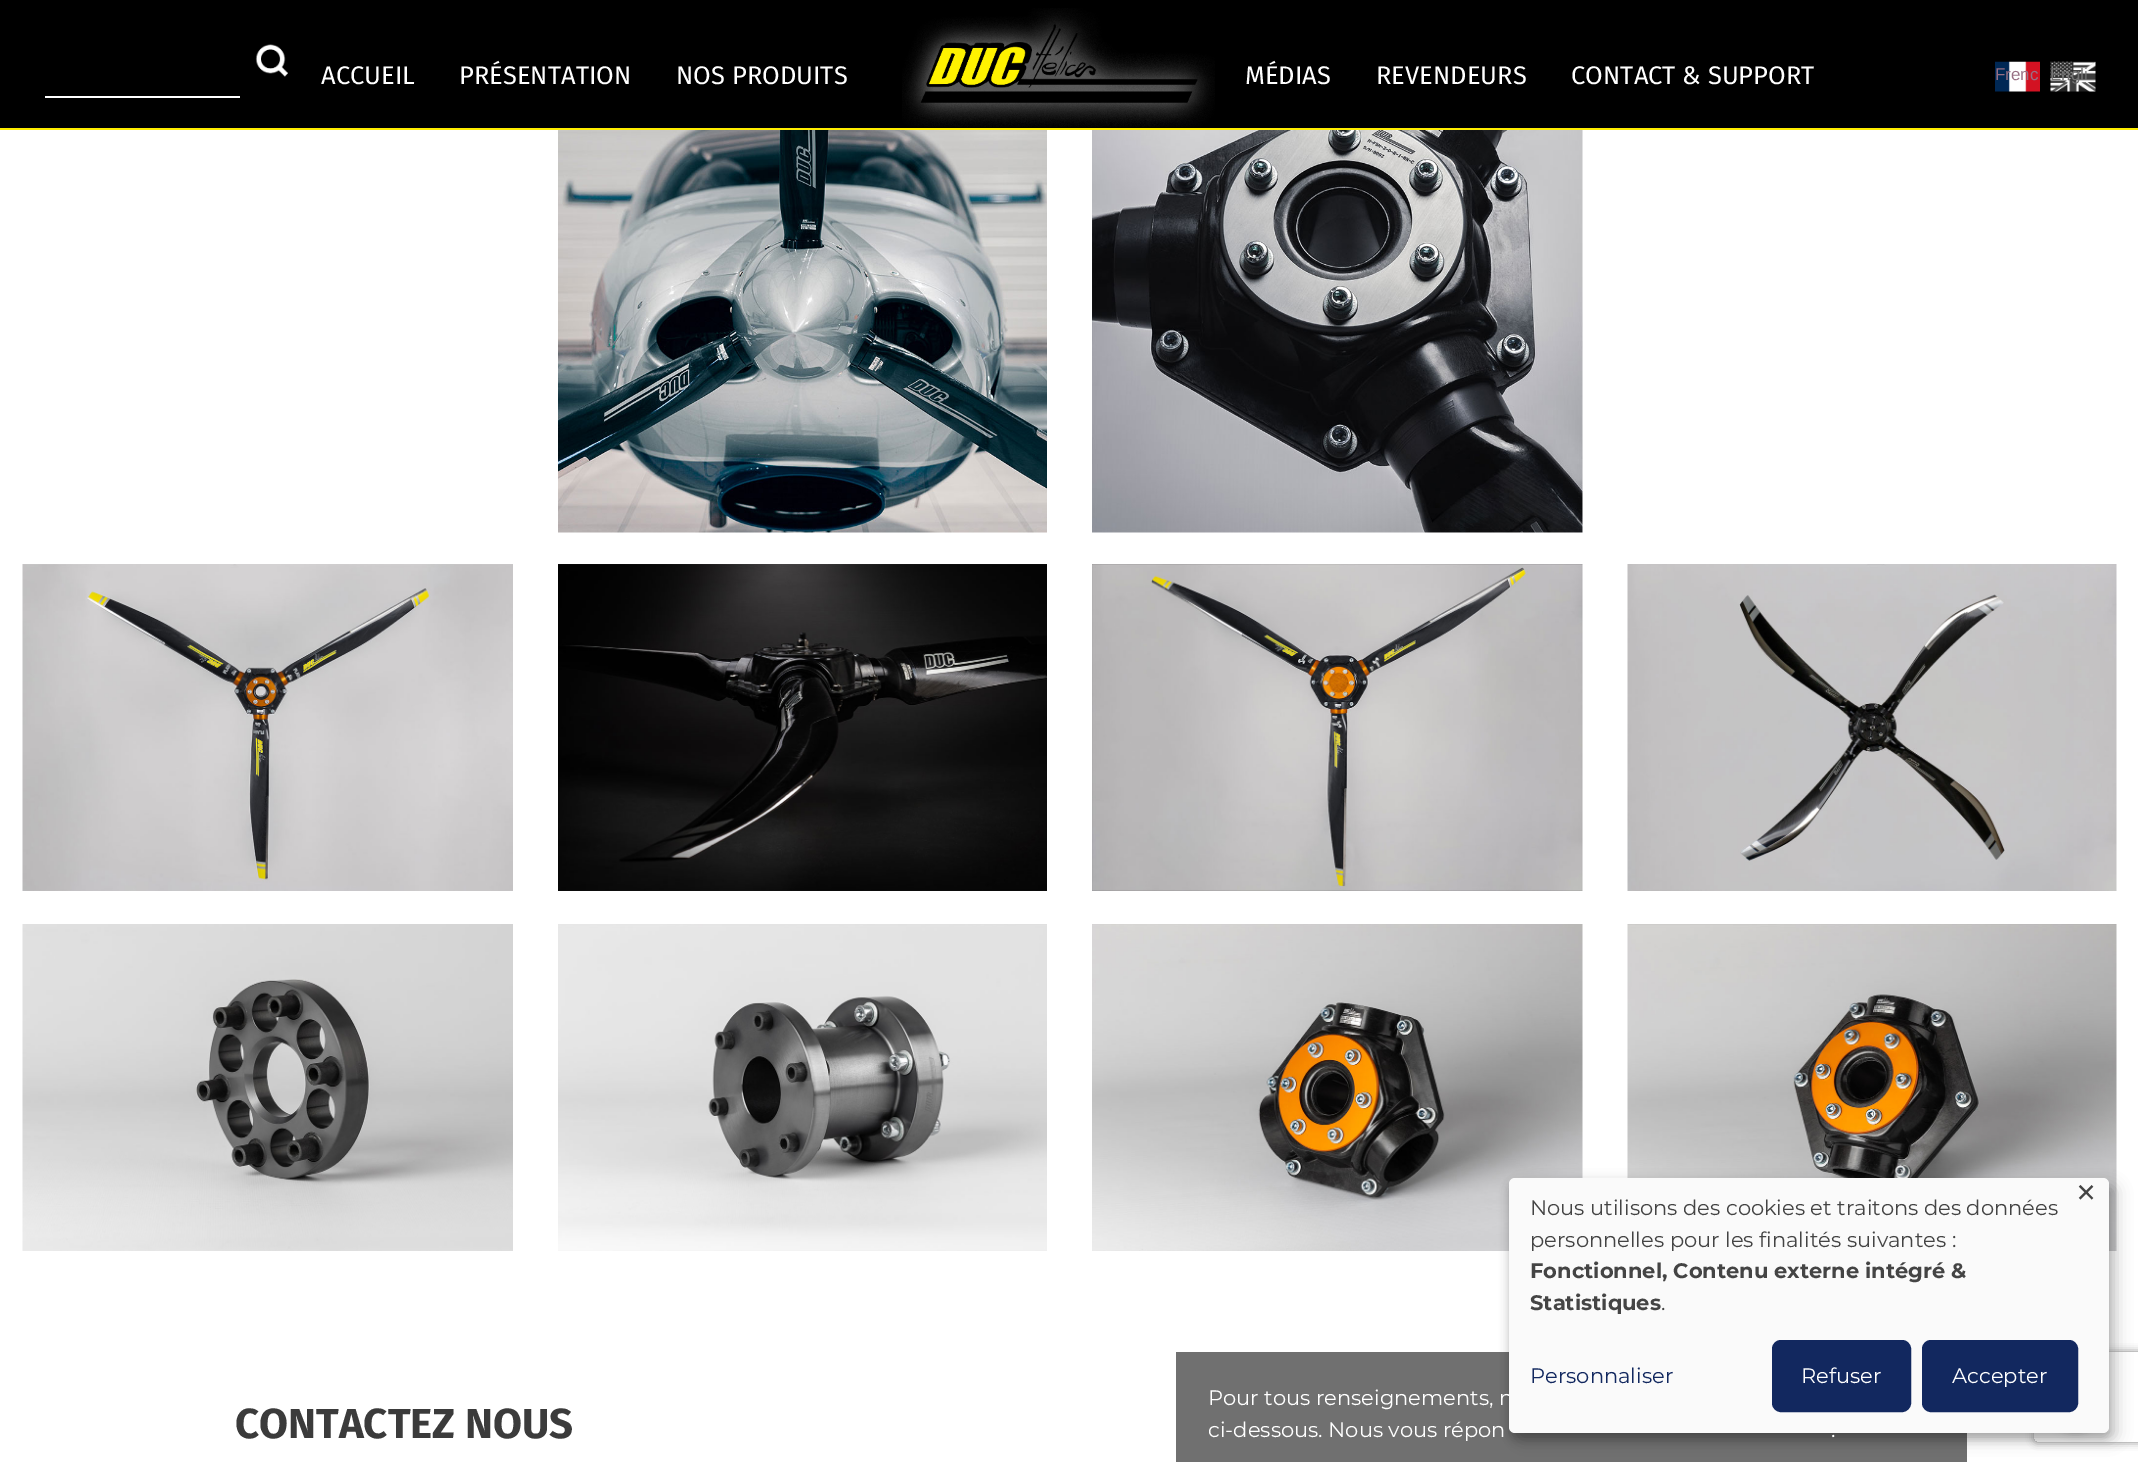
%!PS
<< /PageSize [2138 1462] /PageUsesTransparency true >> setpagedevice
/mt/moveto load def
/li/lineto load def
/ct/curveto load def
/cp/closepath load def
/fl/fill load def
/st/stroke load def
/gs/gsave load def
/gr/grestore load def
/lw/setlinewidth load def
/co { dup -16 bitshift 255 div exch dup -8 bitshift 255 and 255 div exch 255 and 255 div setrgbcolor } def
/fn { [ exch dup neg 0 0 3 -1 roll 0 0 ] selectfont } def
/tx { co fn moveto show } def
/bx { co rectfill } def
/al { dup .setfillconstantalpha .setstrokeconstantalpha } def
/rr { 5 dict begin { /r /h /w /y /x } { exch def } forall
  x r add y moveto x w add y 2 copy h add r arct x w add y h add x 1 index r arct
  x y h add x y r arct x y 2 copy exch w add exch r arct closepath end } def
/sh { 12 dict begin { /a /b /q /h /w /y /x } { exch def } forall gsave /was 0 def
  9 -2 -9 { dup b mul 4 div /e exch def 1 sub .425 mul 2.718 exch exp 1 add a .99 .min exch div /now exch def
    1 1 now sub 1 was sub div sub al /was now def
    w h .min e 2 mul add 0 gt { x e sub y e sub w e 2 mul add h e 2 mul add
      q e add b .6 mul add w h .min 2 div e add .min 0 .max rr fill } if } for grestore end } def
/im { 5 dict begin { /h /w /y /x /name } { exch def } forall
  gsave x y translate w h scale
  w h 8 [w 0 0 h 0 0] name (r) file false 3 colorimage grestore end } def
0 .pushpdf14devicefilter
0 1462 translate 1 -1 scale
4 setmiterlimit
0 0 2138 1462 16#FFFFFF bx
0 0 2138 128 16#000000 bx
0 128 2138 2 16#FFED00 bx
(media/1.raw) 255 44 33 33 im
45 96 195 2 16#FFFFFF bx
(media/2.raw) 902 8 313 119 im
(media/3.raw) 1995 61 45 31 im
(media/4.raw) 2050 61 46 31 im
(media/5.raw) 558 130 489 403 im
(media/6.raw) 1092 130 491 403 im
(media/7.raw) 22 564 491 327 im
(media/8.raw) 558 564 489 327 im
(media/9.raw) 1092 564 491 327 im
(media/10.raw) 1627 564 490 327 im
(media/11.raw) 22 924 491 327 im
(media/12.raw) 558 924 489 327 im
(media/13.raw) 1092 924 491 327 im
(media/14.raw) 1627 924 490 327 im
1176 1352 791 110 16#707070 bx
16#000000 co
1517 1185 600 255 6 7.5 .19 sh
1509 1184 600 255 6 4.5 .2 sh
gs
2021 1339 mt 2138 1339 li 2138 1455 li 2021 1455 li cp 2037 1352 mt 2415 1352 li 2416.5 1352 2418 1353.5 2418 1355 ct 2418 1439 li 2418 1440.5 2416.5 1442 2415 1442 ct 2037 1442 li 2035.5 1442 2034 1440.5 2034 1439 ct 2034 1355 li 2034 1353.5 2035.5 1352 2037 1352 ct cp eoclip newpath
16#808080 co
2034 1352 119 90 3 4 1 sh
gr
2049 1380 53 53 26.5 4 .2 sh
(ACCUEIL) 321 84 /FiraSans-Regular 25.5 16#FFFFFF tx
(PRÉSENTATION) 459 84 /FiraSans-Regular 25.5 16#FFFFFF tx
(NOS PRODUITS) 676 84 /FiraSans-Regular 25.5 16#FFFFFF tx
(MÉDIAS) 1245 84 /FiraSans-Regular 25.5 16#FFFFFF tx
(REVENDEURS) 1376 84 /FiraSans-Regular 25.5 16#FFFFFF tx
(CONTACT & SUPPORT) 1571 84 /FiraSans-Regular 25.5 16#FFFFFF tx
(Frenc) 1995 80 /LiberationSans-Regular 17 16#986F84 tx
(Engli) 2050 80 /LiberationSans-Regular 17 16#747474 tx
(CONTACTEZ NOUS) 235 1438 /FiraSans-Bold 42 16#3B3B3B tx
(Pour tous renseignements, n) 1208 1405 /Montserrat-Regular 21 16#FFFFFF tx
(ci-dessous. Nous vous répon) 1208 1437 /Montserrat-Regular 21 16#FFFFFF tx
(.) 1831 1437 /Montserrat-Regular 21 16#FFFFFF tx
16#FAFAFA co
1509 1178 600 255 6 rr fl
(×) 2074 1207 /Montserrat-Regular 42 16#444444 tx
(Nous utilisons des cookies et traitons des données) 1530 1215 /Montserrat-Regular 21 16#444444 tx
(personnelles pour les finalités suivantes :) 1530 1247 /Montserrat-Regular 21 16#444444 tx
(Fonctionnel, Contenu externe intégré &) 1530 1278 /Montserrat-Bold 21 16#444444 tx
(Statistiques) 1530 1310 /Montserrat-Bold 21 16#444444 tx
(.) 1661 1310 /Montserrat-Regular 21 16#444444 tx
(Personnaliser) 1530 1383 /Montserrat-Regular 21 16#12285F tx
1774.5 1342.5 134 67 6.5 rr gs fl gr
5 lw
st
(Refuser) 1801 1383 /Montserrat-Regular 21 16#FFFFFF tx
16#12285F co
1924.5 1342.5 151 67 6.5 rr gs fl gr
st
(Accepter) 1952 1383 /Montserrat-Regular 21 16#FFFFFF tx
.poppdf14devicefilter showpage
